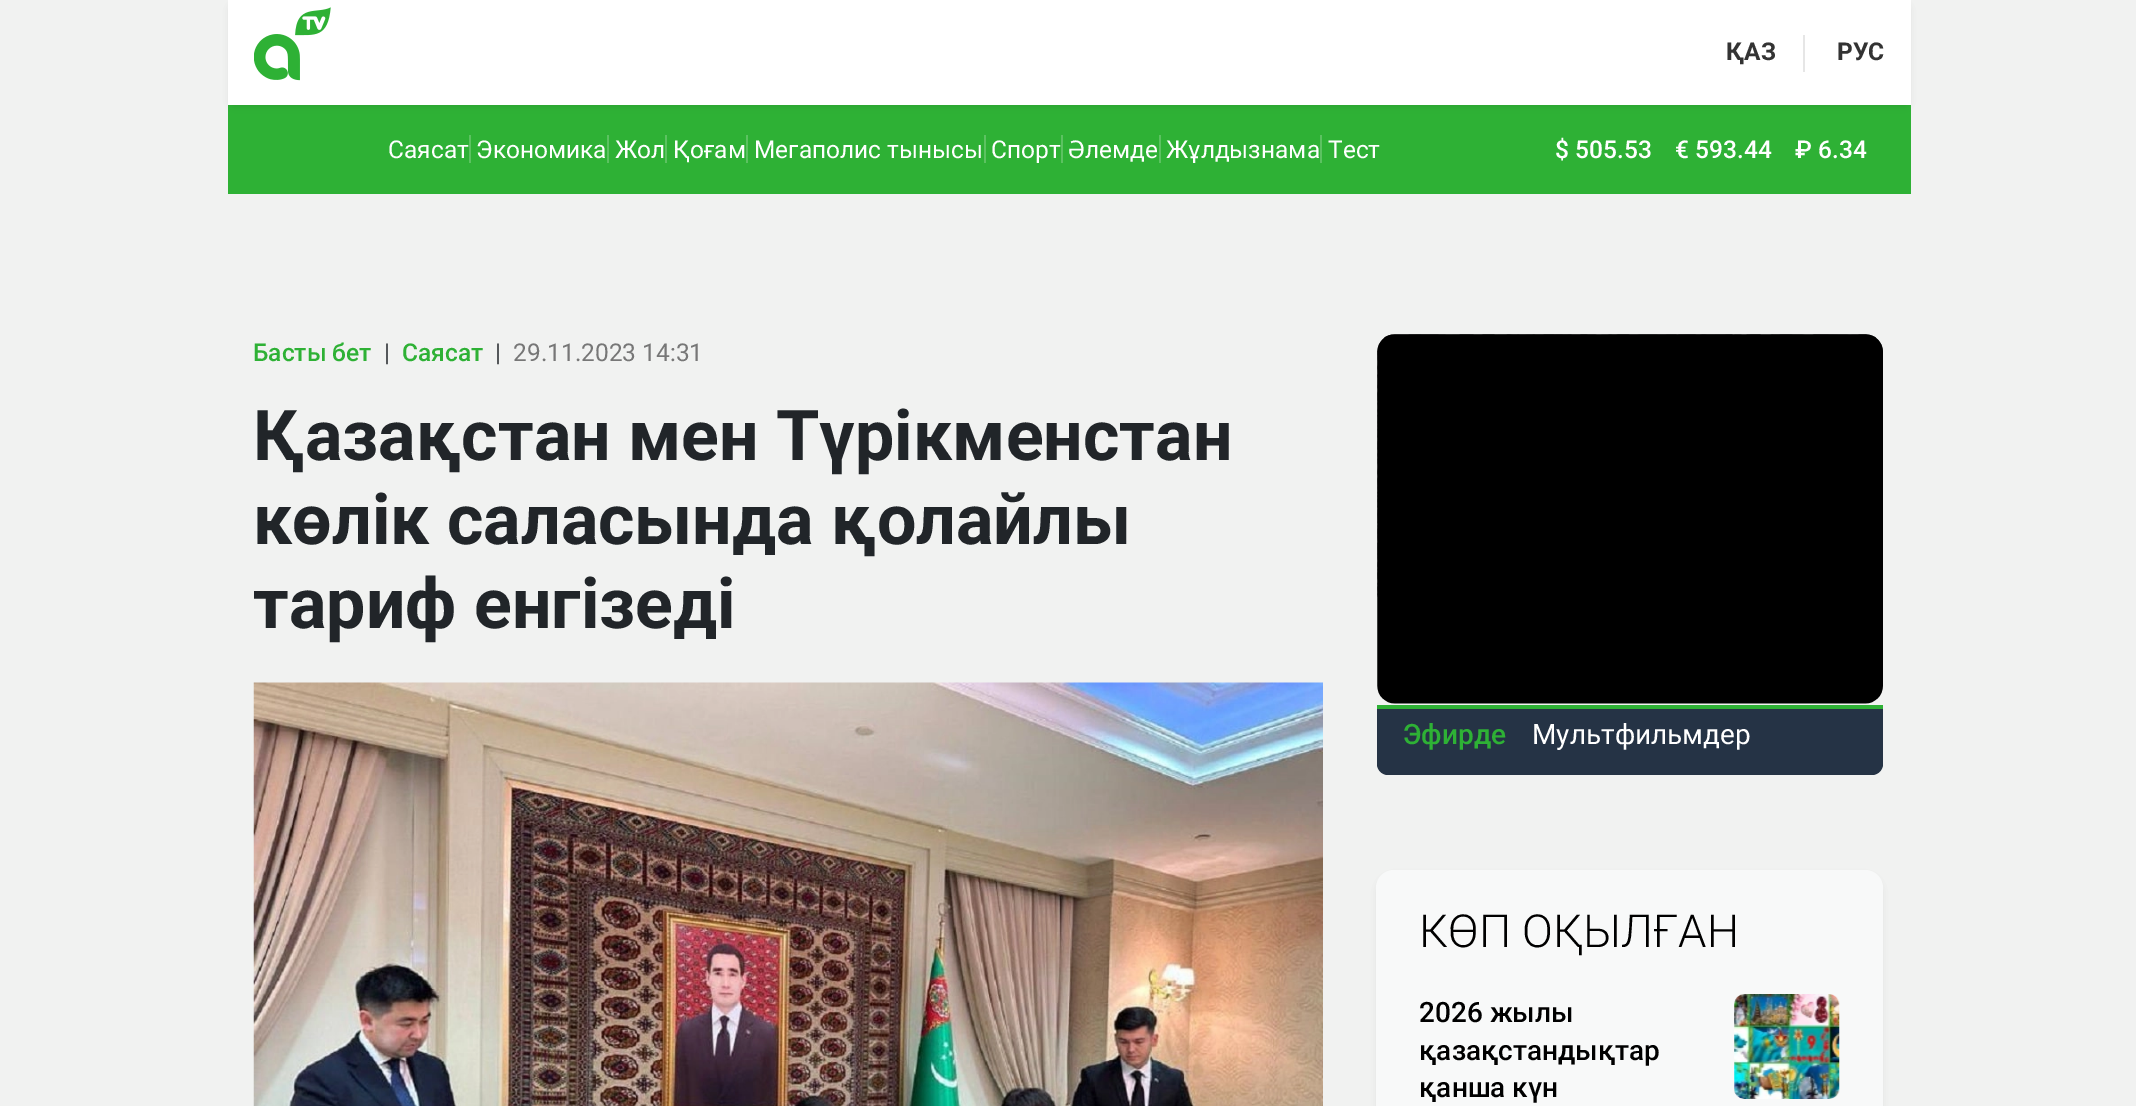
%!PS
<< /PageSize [2136 1106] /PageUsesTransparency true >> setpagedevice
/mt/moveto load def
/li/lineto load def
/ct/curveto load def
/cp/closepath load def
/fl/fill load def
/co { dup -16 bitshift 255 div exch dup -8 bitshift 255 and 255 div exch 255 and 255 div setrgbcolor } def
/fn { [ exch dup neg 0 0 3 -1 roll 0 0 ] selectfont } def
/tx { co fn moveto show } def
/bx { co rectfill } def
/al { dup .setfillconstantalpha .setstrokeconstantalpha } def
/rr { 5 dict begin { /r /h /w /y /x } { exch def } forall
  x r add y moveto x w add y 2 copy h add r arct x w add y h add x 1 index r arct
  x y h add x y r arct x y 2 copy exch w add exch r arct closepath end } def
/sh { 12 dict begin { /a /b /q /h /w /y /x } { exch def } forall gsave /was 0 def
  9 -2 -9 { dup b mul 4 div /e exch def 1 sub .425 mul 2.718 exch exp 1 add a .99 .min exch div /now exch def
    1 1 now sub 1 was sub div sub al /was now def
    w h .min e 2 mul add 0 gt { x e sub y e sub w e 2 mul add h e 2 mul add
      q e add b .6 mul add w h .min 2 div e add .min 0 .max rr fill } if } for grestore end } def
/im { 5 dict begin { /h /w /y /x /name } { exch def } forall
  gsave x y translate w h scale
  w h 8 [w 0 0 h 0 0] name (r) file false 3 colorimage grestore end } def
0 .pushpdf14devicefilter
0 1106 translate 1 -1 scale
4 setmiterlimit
0 0 2136 1106 16#F1F2F1 bx
228 105 1683 89 16#2EB135 bx
16#000000 co
233 9 1673 94 0 4.5 .2 sh
228 0 1683 105 16#FFFFFF bx
(media/1.raw) 254 7 77 74 im
1803 35 2 37 16#E6E6E6 bx
469 135 2 28 16#5CC261 bx
607 135 2 28 16#5CC261 bx
665 135 2 28 16#5CC261 bx
746 135 2 28 16#5CC261 bx
984 135 2 28 16#5CC261 bx
1061 135 2 28 16#5CC261 bx
1159 135 2 28 16#5CC261 bx
1320 135 2 28 16#5CC261 bx
(media/2.raw) 253 682 1070 424 im
(media/3.raw) 1377 334 506 370 im
16#253345 co
1377 705 mt 1883 705 li 1883 764 li 1883 770 1878 775 1872 775 ct 1388 775 li 1382 775 1377 770 1377 764 ct cp fl
1377 705 506 4 16#2EB135 bx
16#000000 co
1381 879 497 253 12 4.5 .2 sh
16#F8F9F9 co
1376 870 507 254 18 rr fl
(media/4.raw) 1734 994 106 105 im
(ҚАЗ) 1726 60 /Roboto-Bold 24.5 16#333333 tx
(РУС) 1837 60 /Roboto-Bold 24.5 16#333333 tx
(Саясат) 388 158 /Roboto-Regular 24.5 16#FFFFFF tx
(Экономика) 476 158 /Roboto-Regular 24.5 16#FFFFFF tx
(Жол) 615 158 /Roboto-Regular 24.5 16#FFFFFF tx
(Қоғам) 673 158 /Roboto-Regular 24.5 16#FFFFFF tx
(Мегаполис тынысы) 754 158 /Roboto-Regular 24.5 16#FFFFFF tx
(Спорт) 991 158 /Roboto-Regular 24.5 16#FFFFFF tx
(Әлемде) 1068 158 /Roboto-Regular 24.5 16#FFFFFF tx
(Жұлдызнама) 1166 158 /Roboto-Regular 24.5 16#FFFFFF tx
(Тест) 1328 158 /Roboto-Regular 24.5 16#FFFFFF tx
($ 505.53) 1555 158 /Roboto-Medium 24.5 16#FFFFFF tx
(€ 593.44) 1675 158 /Roboto-Medium 24.5 16#FFFFFF tx
(₽ 6.34) 1795 158 /Roboto-Medium 24.5 16#FFFFFF tx
(Басты бет) 253 361 /Roboto-Medium 24.5 16#2EB135 tx
(|) 384 361 /Roboto-Regular 24.5 16#55585B tx
(Саясат) 402 361 /Roboto-Medium 24.5 16#2EB135 tx
(|) 495 361 /Roboto-Regular 24.5 16#55585B tx
(29.11.2023 14:31) 513 361 /Roboto-Regular 24.5 16#777777 tx
(Қазақстан мен Түрікменстан) 253 460 /Roboto-Bold 70 16#212529 tx
(көлік саласында қолайлы) 253 544 /Roboto-Bold 70 16#212529 tx
(тариф енгізеді) 253 628 /Roboto-Bold 70 16#212529 tx
(Эфирде) 1403 744 /Roboto-Medium 28 16#2EB135 tx
(Мультфильмдер) 1532 744 /Roboto-Regular 28 16#FFFFFF tx
(КӨП ОҚЫЛҒАН) 1419 947 /Roboto-Light 45.5 16#000000 tx
(2026 жылы) 1419 1022 /Roboto-Medium 28 16#000000 tx
(қазақстандықтар) 1419 1060 /Roboto-Medium 28 16#000000 tx
(қанша күн) 1419 1097 /Roboto-Medium 28 16#000000 tx
.poppdf14devicefilter showpage
